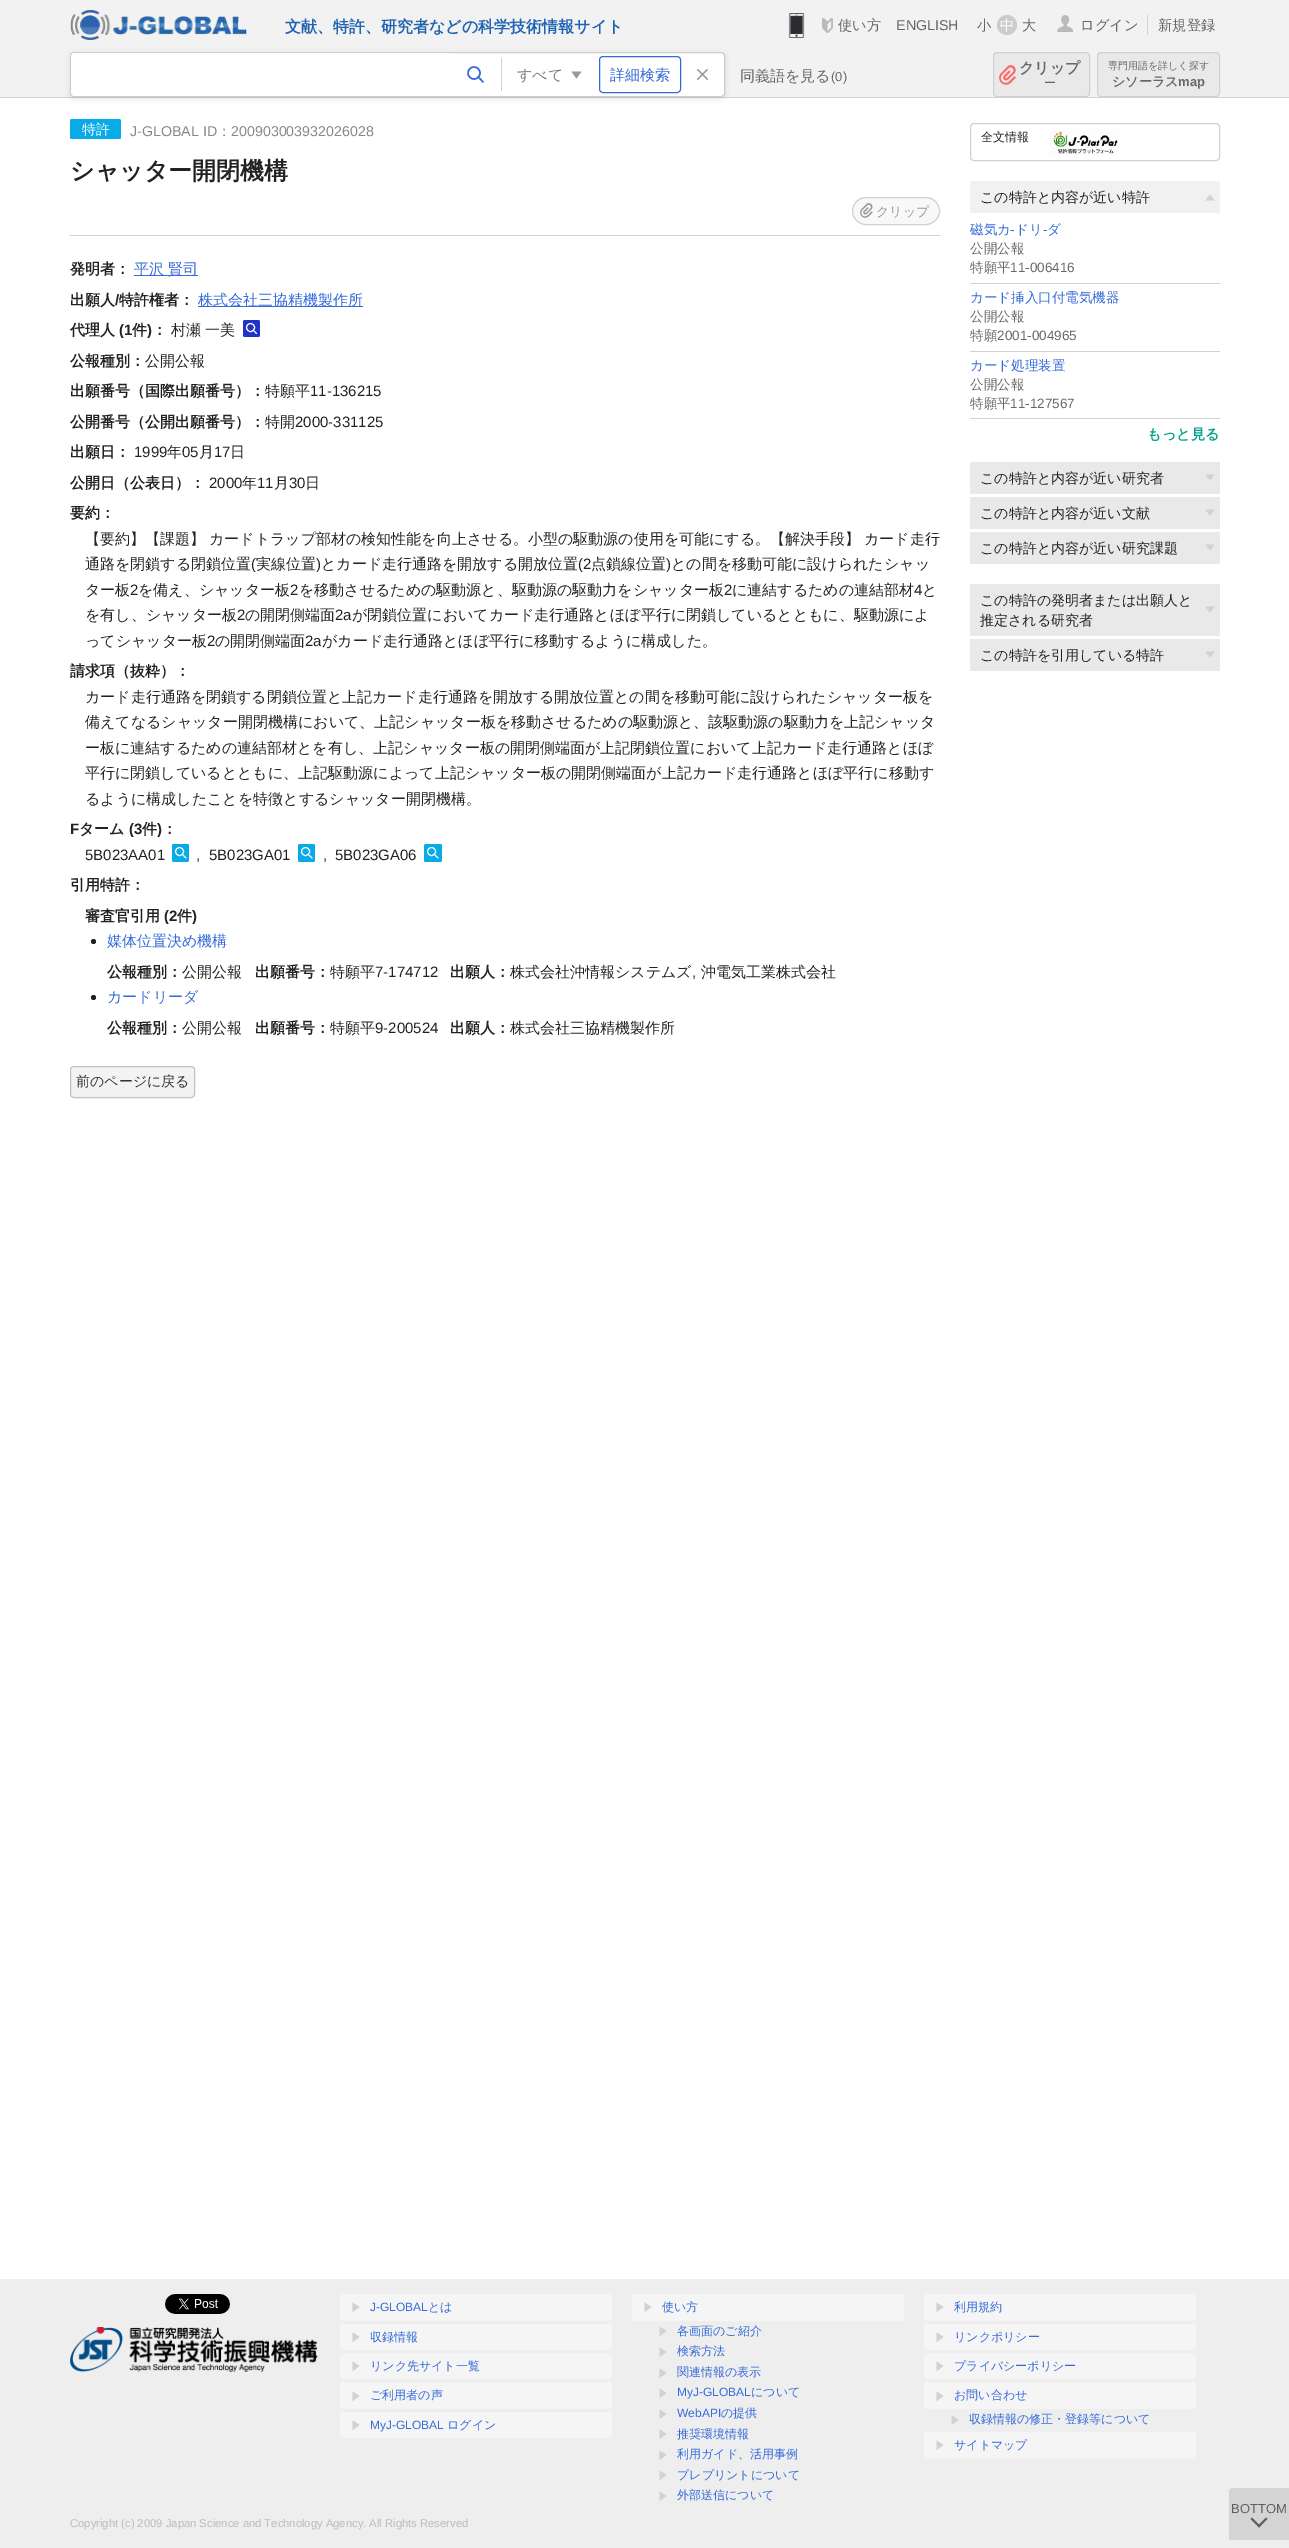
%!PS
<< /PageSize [1289 2548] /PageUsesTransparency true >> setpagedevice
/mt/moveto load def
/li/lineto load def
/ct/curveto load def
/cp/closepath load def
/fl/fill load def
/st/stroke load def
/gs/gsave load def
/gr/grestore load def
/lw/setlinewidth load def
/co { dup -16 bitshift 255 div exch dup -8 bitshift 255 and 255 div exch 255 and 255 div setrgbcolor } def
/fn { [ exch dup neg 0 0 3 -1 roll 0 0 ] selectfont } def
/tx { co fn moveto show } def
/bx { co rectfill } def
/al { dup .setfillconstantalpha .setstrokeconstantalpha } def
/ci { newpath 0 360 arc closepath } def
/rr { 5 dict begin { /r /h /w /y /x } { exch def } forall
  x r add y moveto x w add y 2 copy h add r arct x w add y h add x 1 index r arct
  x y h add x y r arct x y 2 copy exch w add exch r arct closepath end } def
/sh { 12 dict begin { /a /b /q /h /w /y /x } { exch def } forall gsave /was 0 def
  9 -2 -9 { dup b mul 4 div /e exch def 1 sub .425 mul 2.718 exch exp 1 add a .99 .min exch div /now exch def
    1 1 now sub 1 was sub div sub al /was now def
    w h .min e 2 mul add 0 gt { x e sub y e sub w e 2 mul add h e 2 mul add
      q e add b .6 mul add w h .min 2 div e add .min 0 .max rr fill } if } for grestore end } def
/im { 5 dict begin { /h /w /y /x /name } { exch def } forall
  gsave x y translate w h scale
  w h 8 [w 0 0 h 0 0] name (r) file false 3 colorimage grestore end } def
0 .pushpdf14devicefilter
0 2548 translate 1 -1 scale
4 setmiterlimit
0 0 1289 2548 16#FFFFFF bx
0 0 1289 97 16#F2F2F2 bx
(media/1.raw) 70 10 177 30 im
(media/2.raw) 788 13 17 25 im
(media/3.raw) 822 18 11 15 im
16#CCCCCC co
1007 25 10 ci fl
(media/4.raw) 1057 15 16 17 im
1147 15 1 20 16#D1D1D1 bx
0 97 1289 1 16#D1D1D1 bx
16#000000 co
70 54 655 45 4 2.5 .1 sh
16#FFFFFF co
70.5 52.5 654 44 3.5 rr gs fl gr
16#CCCCCC co
st
gs
71 53 653 43 3 rr clip newpath
16#FFFFFF co
71 53 380 43 4 rr fl
gr
16#346AD9 co
1.5 lw
474 73 6 ci st
1 setlinecap
1 setlinejoin
478.5 77 mt 483 82 li st
16#999999 co
581.5 71.5 mt 576.5 78.5 li 571.5 71.5 li cp fl
501 58 1 33 16#D1D1D1 bx
16#346AD9 co
1 lw
0 setlinecap
0 setlinejoin
599.5 56.5 81 36 3.5 rr st
(media/5.raw) 697 69 11 11 im
16#E9E9E9 co
993 52 97 45 4 rr fl
(media/6.raw) 999 65 17 20 im
16#D1D1D1 co
993.5 52.5 96 44 3.5 rr st
16#E9E9E9 co
1097.5 52.5 122 44 3.5 rr gs fl gr
16#D1D1D1 co
st
70 235 870 1 16#D1D1D1 bx
16#06ABE8 co
70 119 51 20 2 rr fl
16#F8F8F8 co
852 197 88 28 14 rr fl
(media/7.raw) 860 203 13 15 im
16#D1D1D1 co
852.5 197.5 87 27 13.5 rr st
134 275 64 1 16#346AD9 bx
198 306 165 1 16#346AD9 bx
16#2134C5 co
243 320 17 17 2 rr fl
16#FFFFFF co
250.5 327.5 4 ci st
gs
246 323 11 11 rectclip
1 setlinecap
1 setlinejoin
253.5 330.5 mt 257 334 li st
gr
16#06ABE8 co
172 844 17 18 2 rr fl
16#FFFFFF co
179.5 851.5 4 ci st
1 setlinecap
1 setlinejoin
182.5 854.5 mt 186 858 li st
16#06ABE8 co
298 844 17 18 2 rr fl
16#FFFFFF co
0 setlinecap
0 setlinejoin
305.5 851.5 4 ci st
1 setlinecap
1 setlinejoin
308.5 854.5 mt 312 858 li st
16#06ABE8 co
424 844 18 18 2 rr fl
16#FFFFFF co
0 setlinecap
0 setlinejoin
431.5 851.5 4 ci st
1 setlinecap
1 setlinejoin
434.5 854.5 mt 438 858 li st
16#222222 co
93.5 941.5 2.5 ci fl
93.5 997.5 2.5 ci fl
gs
70 1066 125 32 4 rr clip newpath
gs 70 1067 mt 195 1067 li 195 1097 li 70 1097 li cp clip newpath
<< /ShadingType 2 /ColorSpace /DeviceRGB /Coords [133 1067 133 1097] /Extend [true true] /Function << /FunctionType 2 /Domain [0 1] /C0 [.961 .961 .961] /C1 [.945 .945 .945] /N 1 >> >> shfill gr
gr
16#C2C2C2 co
0 setlinecap
0 setlinejoin
70.5 1066.5 124 31 3.5 rr st
16#D1D1D1 co
970.5 123.5 249 37 3.5 rr st
(media/8.raw) 1050 130 68 25 im
970 181 250 32 16#F1F1F1 bx
16#D1D1D1 co
1205.5 200.5 mt 1210 194.5 li 1214.5 200.5 li cp fl
970 283 250 1 16#D1D1D1 bx
970 351 250 1 16#D1D1D1 bx
970 418 250 1 16#D1D1D1 bx
970 462 250 32 16#E9E9E9 bx
16#D1D1D1 co
1214.5 474.5 mt 1210 480.5 li 1205.5 474.5 li cp fl
970 497 250 32 16#E9E9E9 bx
16#D1D1D1 co
1214.5 509.5 mt 1210 515.5 li 1205.5 509.5 li cp fl
970 532 250 32 16#E9E9E9 bx
16#D1D1D1 co
1214.5 544.5 mt 1210 550.5 li 1205.5 544.5 li cp fl
970 584 250 52 16#E9E9E9 bx
16#D1D1D1 co
1214.5 606.5 mt 1210 612.5 li 1205.5 606.5 li cp fl
970 639 250 32 16#E9E9E9 bx
16#D1D1D1 co
1214.5 651.5 mt 1210 657.5 li 1205.5 651.5 li cp fl
0 2279 1289 269 16#EEEEEE bx
(media/9.raw) 165 2294 65 20 im
(media/10.raw) 70 2327 248 45 im
16#F5F5F5 co
340 2294 272 27 4 rr fl
16#D1D1D1 co
352.5 2302.5 mt 359.5 2307 li 352.5 2312 li cp fl
16#F5F5F5 co
340 2324 272 26 4 rr fl
16#D1D1D1 co
352.5 2332.5 mt 359.5 2337 li 352.5 2342 li cp fl
16#F5F5F5 co
340 2353 272 26 4 rr fl
16#D1D1D1 co
352.5 2361.5 mt 359.5 2366 li 352.5 2371 li cp fl
16#F5F5F5 co
340 2382 272 27 4 rr fl
16#D1D1D1 co
352.5 2391.5 mt 359.5 2396 li 352.5 2401 li cp fl
16#F5F5F5 co
340 2412 272 26 4 rr fl
16#D1D1D1 co
352.5 2420.5 mt 359.5 2425 li 352.5 2430 li cp fl
16#F5F5F5 co
632 2294 272 27 4 rr fl
16#D1D1D1 co
644.5 2302.5 mt 651.5 2307 li 644.5 2312 li cp 659.5 2326.5 mt 666.5 2331 li 659.5 2336 li cp 659.5 2347.5 mt 666.5 2352 li 659.5 2357 li cp fl
659.5 2368.5 mt 666.5 2373 li 659.5 2378 li cp 659.5 2388.5 mt 666.5 2393 li 659.5 2398 li cp 659.5 2409.5 mt 666.5 2414 li 659.5 2419 li cp fl
659.5 2429.5 mt 666.5 2434 li 659.5 2439 li cp 659.5 2450.5 mt 666.5 2455 li 659.5 2460 li cp 659.5 2470.5 mt 666.5 2475 li 659.5 2480 li cp fl
659.5 2491.5 mt 666.5 2496 li 659.5 2501 li cp fl
16#F5F5F5 co
924 2294 272 27 4 rr fl
16#D1D1D1 co
936.5 2302.5 mt 943.5 2307 li 936.5 2312 li cp fl
16#F5F5F5 co
924 2324 272 26 4 rr fl
16#D1D1D1 co
936.5 2332.5 mt 943.5 2337 li 936.5 2342 li cp fl
16#F5F5F5 co
924 2353 272 26 4 rr fl
16#D1D1D1 co
936.5 2361.5 mt 943.5 2366 li 936.5 2371 li cp fl
16#F5F5F5 co
924 2382 272 27 4 rr fl
16#D1D1D1 co
936.5 2391.5 mt 943.5 2396 li 936.5 2401 li cp 951.5 2415.5 mt 958.5 2420 li 951.5 2425 li cp fl
16#F5F5F5 co
924 2432 272 27 4 rr fl
16#D1D1D1 co
936.5 2440.5 mt 943.5 2445 li 936.5 2450 li cp fl
16#D4D4D4 co
1233 2488 mt 1289 2488 li 1289 2540 li 1229 2540 li 1229 2492 li 1229 2490 1231 2488 1233 2488 ct cp fl
16#5F5F5F co
1257.5 2526 mt 1266 2517.5 li 1267.5 2519 li 1259 2527.5 li cp fl
1250.5 2519 mt 1252 2517.5 li 1260.5 2526 li 1259 2527.5 li cp fl
(文献、特許、研究者などの科学技術情報サイト) 285 32 /WenQuanYiZenHei-Bold 16 16#2064B1 tx
(使い方) 838 30 /WenQuanYiZenHei-Medium 14.25 16#666666 tx
(ENGLISH) 896 30 /LiberationSans-Regular 14.25 16#666666 tx
(小) 977 30 /WenQuanYiZenHei-Medium 14.25 16#666666 tx
(中) 1000 30 /WenQuanYiZenHei-Medium 14.25 16#FFFFFF tx
(大) 1022 30 /WenQuanYiZenHei-Medium 14.25 16#666666 tx
(ログイン) 1080 30 /WenQuanYiZenHei-Medium 14.25 16#666666 tx
(新規登録) 1158 30 /WenQuanYiZenHei-Medium 14.25 16#666666 tx
(すべて) 517 80 /WenQuanYiZenHei-Medium 15 16#777777 tx
(詳細検索) 610 80 /WenQuanYiZenHei-Medium 15 16#346AD9 tx
(同義語を見る) 740 81 /WenQuanYiZenHei-Medium 15 16#666666 tx
(\(0\)) 831 81 /LiberationSans-Regular 13 16#666666 tx
(クリップ) 1019 73 /WenQuanYiZenHei-Bold 15 16#666666 tx
(ー) 1044 87 /WenQuanYiZenHei-Medium 12 16#666666 tx
(専門用語を詳しく探す) 1108 69 /WenQuanYiZenHei-Medium 10 16#666666 tx
(シソーラス) 1112 86 /WenQuanYiZenHei-Bold 13 16#666666 tx
(map) 1178 86 /LiberationSans-Bold 13 16#666666 tx
(特許) 82 134 /WenQuanYiZenHei-Medium 14 16#FFFFFF tx
(J-GLOBAL ID) 130 136 /LiberationSans-Regular 14.25 16#888888 tx
(：) 217 136 /WenQuanYiZenHei-Medium 14.25 16#888888 tx
(200903003932026028) 231 136 /LiberationSans-Regular 14.25 16#888888 tx
(シャッター開閉機構) 70 179 /WenQuanYiZenHei-Bold 24 16#222222 tx
(クリップ) 876 216 /WenQuanYiZenHei-Medium 13 16#999999 tx
(発明者：) 70 274 /WenQuanYiZenHei-Bold 15 16#222222 tx
(平沢) 134 274 /WenQuanYiZenHei-Medium 15 16#346AD9 tx
(賢司) 168 274 /WenQuanYiZenHei-Medium 15 16#346AD9 tx
(出願人) 70 305 /WenQuanYiZenHei-Bold 15 16#222222 tx
(/) 115 305 /LiberationSans-Bold 15 16#222222 tx
(特許権者：) 119 305 /WenQuanYiZenHei-Bold 15 16#222222 tx
(株式会社三協精機製作所) 198 305 /WenQuanYiZenHei-Medium 15 16#346AD9 tx
(代理人) 70 335 /WenQuanYiZenHei-Bold 15 16#222222 tx
(\(1) 119 335 /LiberationSans-Bold 15 16#222222 tx
(件) 132 335 /WenQuanYiZenHei-Bold 15 16#222222 tx
(\)) 147 335 /LiberationSans-Bold 15 16#222222 tx
(：) 152 335 /WenQuanYiZenHei-Bold 15 16#222222 tx
(村瀬) 171 335 /WenQuanYiZenHei-Medium 15 16#222222 tx
(一美) 205 335 /WenQuanYiZenHei-Medium 15 16#222222 tx
(公報種別：) 70 366 /WenQuanYiZenHei-Bold 15 16#222222 tx
(公開公報) 145 366 /WenQuanYiZenHei-Medium 15 16#222222 tx
(出願番号（国際出願番号）：) 70 396 /WenQuanYiZenHei-Bold 15 16#222222 tx
(特願平) 265 396 /WenQuanYiZenHei-Medium 15 16#222222 tx
(11-136215) 310 396 /LiberationSans-Regular 15 16#222222 tx
(公開番号（公開出願番号）：) 70 427 /WenQuanYiZenHei-Bold 15 16#222222 tx
(特開) 265 427 /WenQuanYiZenHei-Medium 15 16#222222 tx
(2000-331125) 295 427 /LiberationSans-Regular 15 16#222222 tx
(出願日：) 70 457 /WenQuanYiZenHei-Bold 15 16#222222 tx
(1999) 134 457 /LiberationSans-Regular 15 16#222222 tx
(年) 167 457 /WenQuanYiZenHei-Medium 15 16#222222 tx
(05) 182 457 /LiberationSans-Regular 15 16#222222 tx
(月) 199 457 /WenQuanYiZenHei-Medium 15 16#222222 tx
(17) 214 457 /LiberationSans-Regular 15 16#222222 tx
(日) 230 457 /WenQuanYiZenHei-Medium 15 16#222222 tx
(公開日（公表日）：) 70 488 /WenQuanYiZenHei-Bold 15 16#222222 tx
(2000) 209 488 /LiberationSans-Regular 15 16#222222 tx
(年) 242 488 /WenQuanYiZenHei-Medium 15 16#222222 tx
(11) 257 488 /LiberationSans-Regular 15 16#222222 tx
(月) 274 488 /WenQuanYiZenHei-Medium 15 16#222222 tx
(30) 289 488 /LiberationSans-Regular 15 16#222222 tx
(日) 305 488 /WenQuanYiZenHei-Medium 15 16#222222 tx
(要約：) 70 518 /WenQuanYiZenHei-Bold 15 16#222222 tx
(【要約】【課題】) 85 544 /WenQuanYiZenHei-Medium 15 16#222222 tx
(カードトラップ部材の検知性能を向上させる。小型の駆動源の使用を可能にする。【解決手段】) 209 544 /WenQuanYiZenHei-Medium 15 16#222222 tx
(カード走行) 864 544 /WenQuanYiZenHei-Medium 15 16#222222 tx
(通路を閉鎖する閉鎖位置) 85 569 /WenQuanYiZenHei-Medium 15 16#222222 tx
(\() 251 569 /LiberationSans-Regular 15 16#222222 tx
(実線位置) 256 569 /WenQuanYiZenHei-Medium 15 16#222222 tx
(\)) 316 569 /LiberationSans-Regular 15 16#222222 tx
(とカード走行通路を開放する開放位置) 321 569 /WenQuanYiZenHei-Medium 15 16#222222 tx
(\(2) 578 569 /LiberationSans-Regular 15 16#222222 tx
(点鎖線位置) 591 569 /WenQuanYiZenHei-Medium 15 16#222222 tx
(\)) 666 569 /LiberationSans-Regular 15 16#222222 tx
(との間を移動可能に設けられたシャッ) 671 569 /WenQuanYiZenHei-Medium 15 16#222222 tx
(ター板) 85 595 /WenQuanYiZenHei-Medium 15 16#222222 tx
(2) 130 595 /LiberationSans-Regular 15 16#222222 tx
(を備え、シャッター板) 138 595 /WenQuanYiZenHei-Medium 15 16#222222 tx
(2) 290 595 /LiberationSans-Regular 15 16#222222 tx
(を移動させるための駆動源と、駆動源の駆動力をシャッター板) 299 595 /WenQuanYiZenHei-Medium 15 16#222222 tx
(2) 724 595 /LiberationSans-Regular 15 16#222222 tx
(に連結するための連結部材) 732 595 /WenQuanYiZenHei-Medium 15 16#222222 tx
(4) 914 595 /LiberationSans-Regular 15 16#222222 tx
(と) 922 595 /WenQuanYiZenHei-Medium 15 16#222222 tx
(を有し、シャッター板) 85 620 /WenQuanYiZenHei-Medium 15 16#222222 tx
(2) 237 620 /LiberationSans-Regular 15 16#222222 tx
(の開閉側端面) 245 620 /WenQuanYiZenHei-Medium 15 16#222222 tx
(2a) 335 620 /LiberationSans-Regular 15 16#222222 tx
(が閉鎖位置においてカード走行通路とほぼ平行に閉鎖しているとともに、駆動源によ) 352 620 /WenQuanYiZenHei-Medium 15 16#222222 tx
(ってシャッター板) 85 646 /WenQuanYiZenHei-Medium 15 16#222222 tx
(2) 207 646 /LiberationSans-Regular 15 16#222222 tx
(の開閉側端面) 215 646 /WenQuanYiZenHei-Medium 15 16#222222 tx
(2a) 305 646 /LiberationSans-Regular 15 16#222222 tx
(がカード走行通路とほぼ平行に移動するように構成した。) 322 646 /WenQuanYiZenHei-Medium 15 16#222222 tx
gs
70 98 870 1019 rectclip
(請求項（抜粋）：) 70 676 /WenQuanYiZenHei-Bold 15 16#222222 tx
gr
(カード走行通路を閉鎖する閉鎖位置と上記カード走行通路を開放する開放位置との間を移動可能に設けられたシャッター板を) 85 702 /WenQuanYiZenHei-Medium 15 16#222222 tx
(備えてなるシャッター開閉機構において、上記シャッター板を移動させるための駆動源と、該駆動源の駆動力を上記シャッタ) 85 727 /WenQuanYiZenHei-Medium 15 16#222222 tx
(ー板に連結するための連結部材とを有し、上記シャッター板の開閉側端面が上記閉鎖位置において上記カード走行通路とほぼ) 85 753 /WenQuanYiZenHei-Medium 15 16#222222 tx
(平行に閉鎖しているとともに、上記駆動源によって上記シャッター板の開閉側端面が上記カード走行通路とほぼ平行に移動す) 85 778 /WenQuanYiZenHei-Medium 15 16#222222 tx
(るように構成したことを特徴とするシャッター開閉機構。) 85 804 /WenQuanYiZenHei-Medium 15 16#222222 tx
(F) 70 834 /LiberationSans-Bold 15 16#222222 tx
(ターム) 79 834 /WenQuanYiZenHei-Bold 15 16#222222 tx
(\(3) 129 834 /LiberationSans-Bold 15 16#222222 tx
(件) 142 834 /WenQuanYiZenHei-Bold 15 16#222222 tx
(\)) 157 834 /LiberationSans-Bold 15 16#222222 tx
(：) 162 834 /WenQuanYiZenHei-Bold 15 16#222222 tx
(5B023AA01) 85 860 /LiberationSans-Regular 15 16#222222 tx
(,) 196 860 /LiberationSans-Regular 15 16#222222 tx
(5B023GA01) 209 860 /LiberationSans-Regular 15 16#222222 tx
(,) 323 860 /LiberationSans-Regular 15 16#222222 tx
(5B023GA06) 335 860 /LiberationSans-Regular 15 16#222222 tx
(引用特許：) 70 890 /WenQuanYiZenHei-Bold 15 16#222222 tx
(審査官引用) 85 921 /WenQuanYiZenHei-Bold 15 16#222222 tx
(\(2) 164 921 /LiberationSans-Bold 15 16#222222 tx
(件) 177 921 /WenQuanYiZenHei-Bold 15 16#222222 tx
(\)) 192 921 /LiberationSans-Bold 15 16#222222 tx
(媒体位置決め機構) 107 946 /WenQuanYiZenHei-Medium 15 16#346AD9 tx
(公報種別：) 107 977 /WenQuanYiZenHei-Bold 15 16#222222 tx
(公開公報) 182 977 /WenQuanYiZenHei-Medium 15 16#222222 tx
(出願番号：) 255 977 /WenQuanYiZenHei-Bold 15 16#222222 tx
(特願平) 330 977 /WenQuanYiZenHei-Medium 15 16#222222 tx
(7-174712) 375 977 /LiberationSans-Regular 15 16#222222 tx
(出願人：) 450 977 /WenQuanYiZenHei-Bold 15 16#222222 tx
(株式会社沖情報システムズ) 510 977 /WenQuanYiZenHei-Medium 15 16#222222 tx
(,) 692 977 /LiberationSans-Regular 15 16#222222 tx
(沖電気工業株式会社) 701 977 /WenQuanYiZenHei-Medium 15 16#222222 tx
(カードリーダ) 107 1002 /WenQuanYiZenHei-Medium 15 16#346AD9 tx
(公報種別：) 107 1033 /WenQuanYiZenHei-Bold 15 16#222222 tx
(公開公報) 182 1033 /WenQuanYiZenHei-Medium 15 16#222222 tx
(出願番号：) 255 1033 /WenQuanYiZenHei-Bold 15 16#222222 tx
(特願平) 330 1033 /WenQuanYiZenHei-Medium 15 16#222222 tx
(9-200524) 375 1033 /LiberationSans-Regular 15 16#222222 tx
(出願人：) 450 1033 /WenQuanYiZenHei-Bold 15 16#222222 tx
(株式会社三協精機製作所) 510 1033 /WenQuanYiZenHei-Medium 15 16#222222 tx
(前のページに戻る) 76 1086 /WenQuanYiZenHei-Medium 14 16#333333 tx
(全文情報) 981 141 /WenQuanYiZenHei-Medium 12 16#222222 tx
(この特許と内容が近い特許) 980 202 /WenQuanYiZenHei-Medium 14 16#222222 tx
(磁気カ) 970 234 /WenQuanYiZenHei-Medium 13.5 16#346AD9 tx
(-) 1010 234 /LiberationSans-Regular 13.5 16#346AD9 tx
(ドリ) 1015 234 /WenQuanYiZenHei-Medium 13.5 16#346AD9 tx
(-) 1043 234 /LiberationSans-Regular 13.5 16#346AD9 tx
(ダ) 1047 234 /WenQuanYiZenHei-Medium 13.5 16#346AD9 tx
(公開公報) 970 253 /WenQuanYiZenHei-Medium 13.5 16#666666 tx
gs
970 240 250 38 rectclip
(特願平) 970 272 /WenQuanYiZenHei-Medium 13.5 16#666666 tx
gr
(11-006416) 1010 272 /LiberationSans-Regular 13.5 16#666666 tx
(カード挿入口付電気機器) 970 302 /WenQuanYiZenHei-Medium 13.5 16#346AD9 tx
(公開公報) 970 321 /WenQuanYiZenHei-Medium 13.5 16#666666 tx
gs
970 308 250 38 rectclip
(特願) 970 340 /WenQuanYiZenHei-Medium 13.5 16#666666 tx
gr
(2001-004965) 997 340 /LiberationSans-Regular 13.5 16#666666 tx
(カード処理装置) 970 370 /WenQuanYiZenHei-Medium 13.5 16#346AD9 tx
(公開公報) 970 389 /WenQuanYiZenHei-Medium 13.5 16#666666 tx
gs
970 376 250 37 rectclip
(特願平) 970 408 /WenQuanYiZenHei-Medium 13.5 16#666666 tx
gr
(11-127567) 1010 408 /LiberationSans-Regular 13.5 16#666666 tx
(もっと見る) 1147 439 /WenQuanYiZenHei-Bold 14.25 16#02A28F tx
(この特許と内容が近い研究者) 980 483 /WenQuanYiZenHei-Medium 14 16#222222 tx
(この特許と内容が近い文献) 980 518 /WenQuanYiZenHei-Medium 14 16#222222 tx
(この特許と内容が近い研究課題) 980 553 /WenQuanYiZenHei-Medium 14 16#222222 tx
(この特許の発明者または出願人と) 980 605 /WenQuanYiZenHei-Medium 14 16#222222 tx
(推定される研究者) 980 625 /WenQuanYiZenHei-Medium 14 16#222222 tx
(この特許を引用している特許) 980 660 /WenQuanYiZenHei-Medium 14 16#222222 tx
(J-GLOBAL) 370 2311 /LiberationSans-Regular 12 16#346AD9 tx
(とは) 428 2311 /WenQuanYiZenHei-Medium 12 16#346AD9 tx
(収録情報) 370 2341 /WenQuanYiZenHei-Medium 12 16#346AD9 tx
(リンク先サイト一覧) 370 2370 /WenQuanYiZenHei-Medium 12 16#346AD9 tx
(ご利用者の声) 370 2399 /WenQuanYiZenHei-Medium 12 16#346AD9 tx
(MyJ-GLOBAL) 370 2429 /LiberationSans-Regular 12 16#346AD9 tx
(ログイン) 447 2429 /WenQuanYiZenHei-Medium 12 16#346AD9 tx
(使い方) 662 2311 /WenQuanYiZenHei-Medium 12 16#346AD9 tx
(各画面のご紹介) 677 2335 /WenQuanYiZenHei-Medium 12 16#346AD9 tx
(検索方法) 677 2355 /WenQuanYiZenHei-Medium 12 16#346AD9 tx
(関連情報の表示) 677 2376 /WenQuanYiZenHei-Medium 12 16#346AD9 tx
(MyJ-GLOBAL) 677 2396 /LiberationSans-Regular 12 16#346AD9 tx
(について) 751 2396 /WenQuanYiZenHei-Medium 12 16#346AD9 tx
(WebAPI) 677 2417 /LiberationSans-Regular 12 16#346AD9 tx
(の提供) 721 2417 /WenQuanYiZenHei-Medium 12 16#346AD9 tx
(推奨環境情報) 677 2438 /WenQuanYiZenHei-Medium 12 16#346AD9 tx
(利用ガイド、活用事例) 677 2458 /WenQuanYiZenHei-Medium 12 16#346AD9 tx
(プレプリントについて) 677 2479 /WenQuanYiZenHei-Medium 12 16#346AD9 tx
(外部送信について) 677 2499 /WenQuanYiZenHei-Medium 12 16#346AD9 tx
(利用規約) 954 2311 /WenQuanYiZenHei-Medium 12 16#346AD9 tx
(リンクポリシー) 954 2341 /WenQuanYiZenHei-Medium 12 16#346AD9 tx
(プライバシーポリシー) 954 2370 /WenQuanYiZenHei-Medium 12 16#346AD9 tx
(お問い合わせ) 954 2399 /WenQuanYiZenHei-Medium 12 16#346AD9 tx
(収録情報の修正・登録等について) 969 2423 /WenQuanYiZenHei-Medium 12 16#346AD9 tx
(サイトマップ) 954 2449 /WenQuanYiZenHei-Medium 12 16#346AD9 tx
(Copyright \(c\) 2009 Japan Science and Technology Agency. All Rights Reserved) 70 2527 /LiberationSans-Regular 11.25 16#BBBBBB tx
(BOTTOM) 1231 2513 /LiberationSans-Regular 13 16#5F5F5F tx
.poppdf14devicefilter showpage
